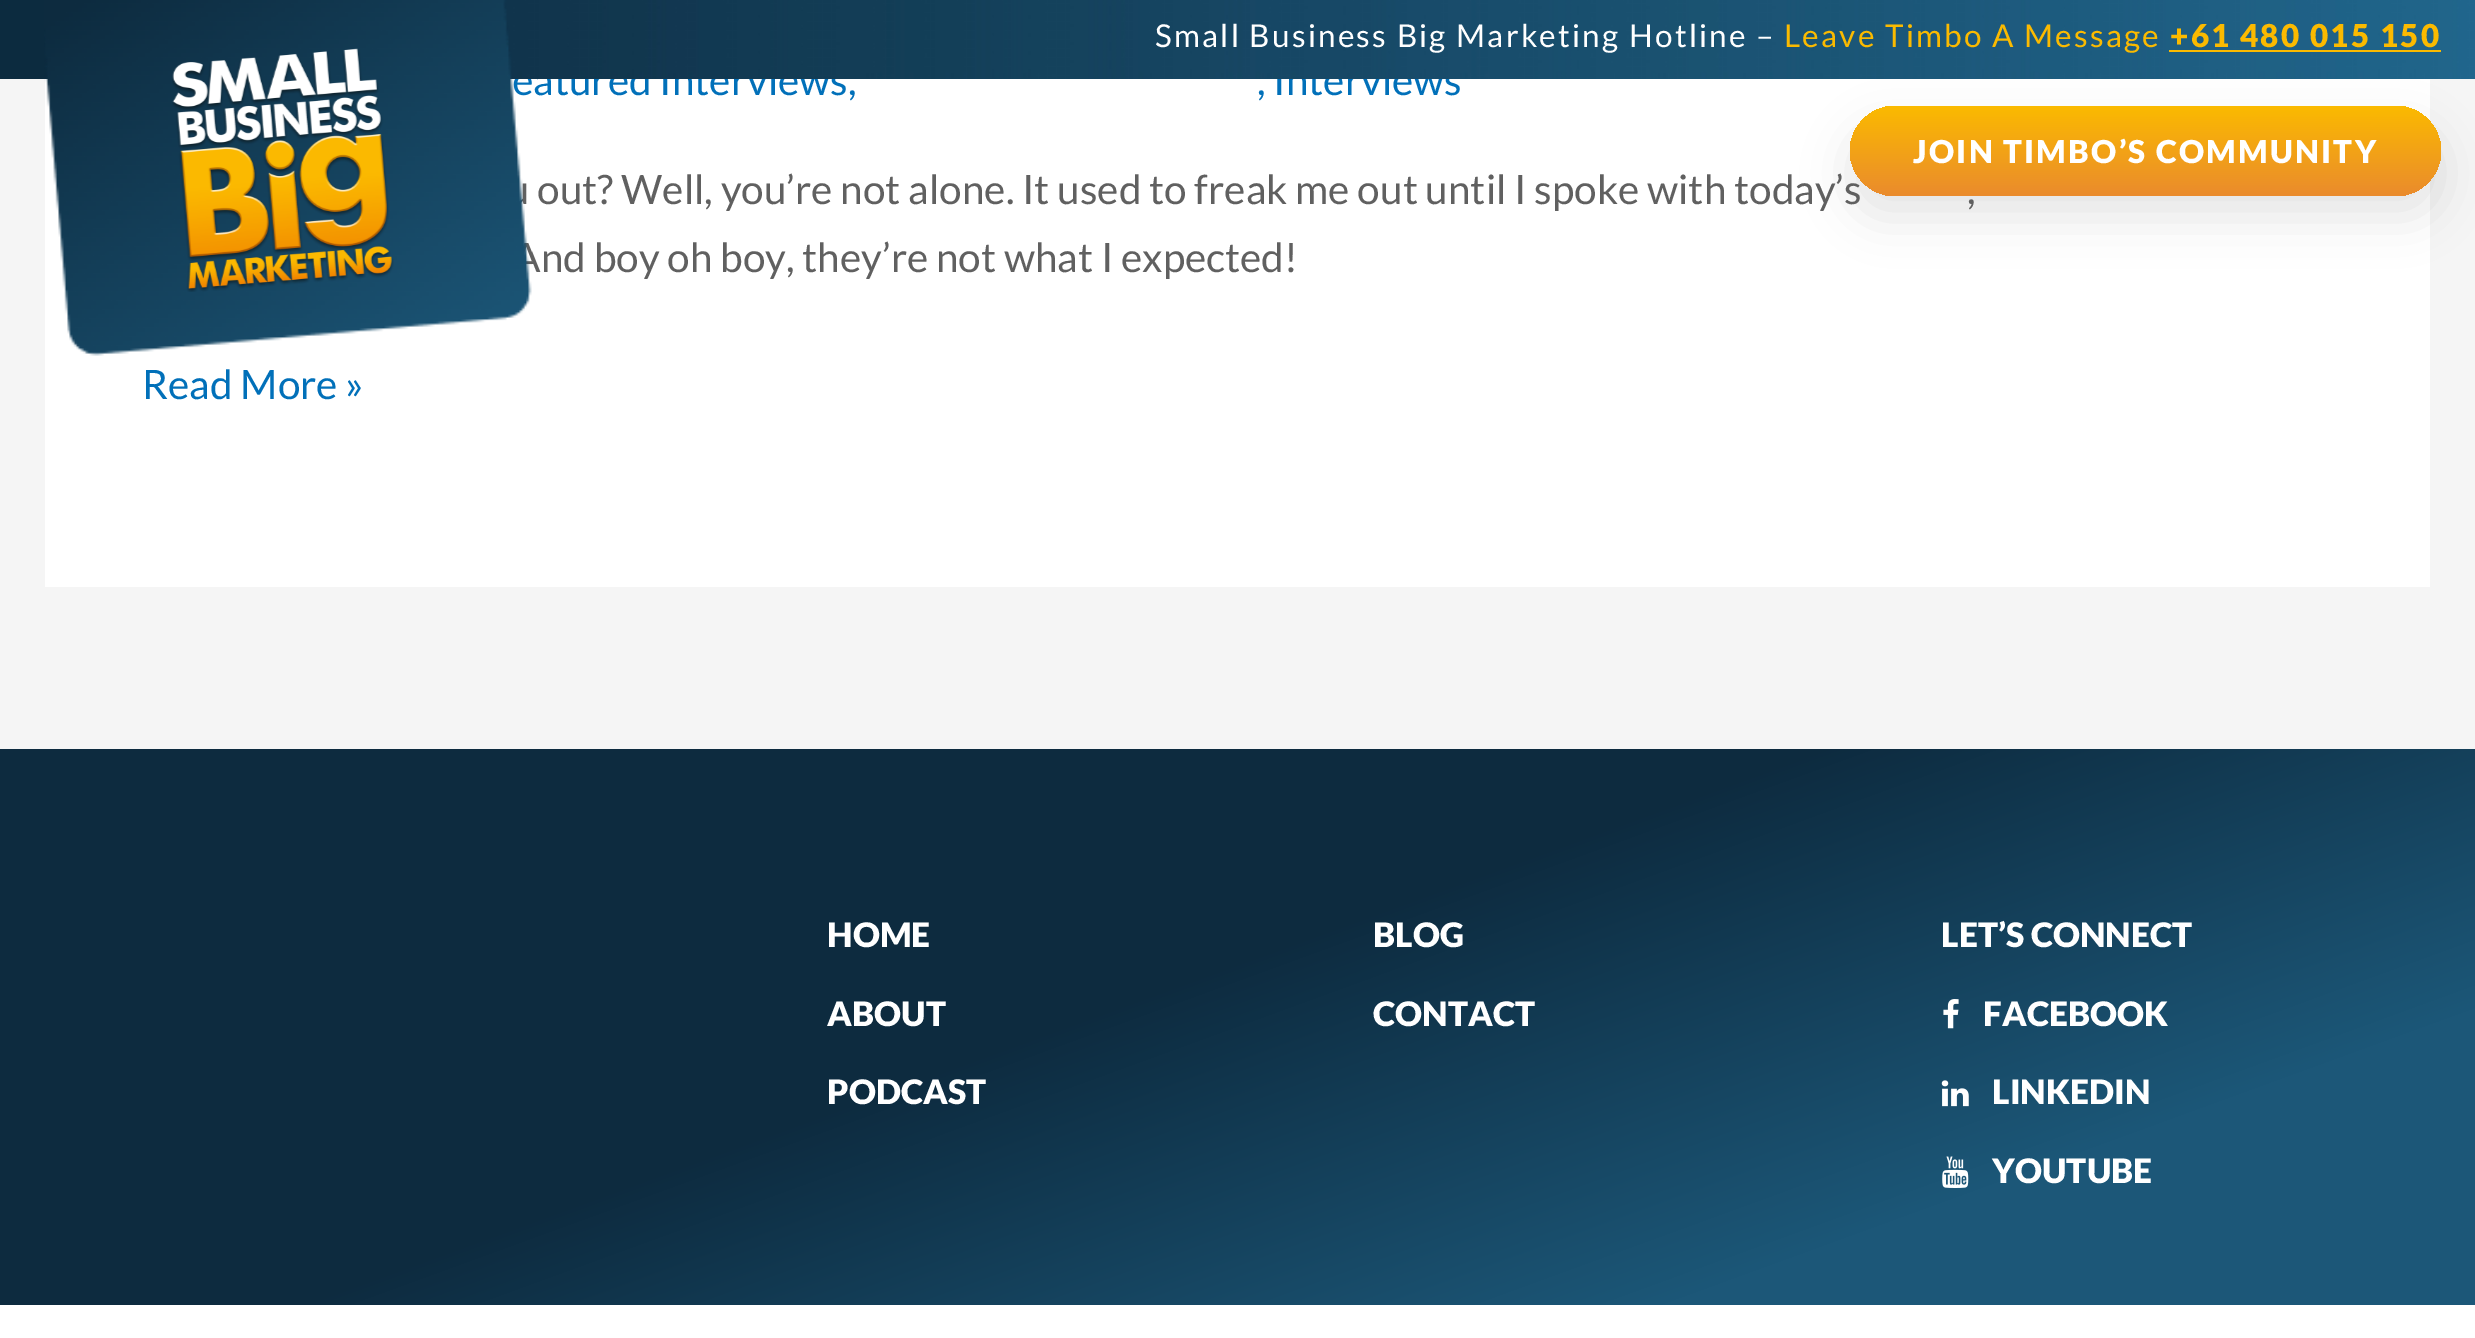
%!PS
<< /PageSize [2475 1338] /PageUsesTransparency true >> setpagedevice
/mt/moveto load def
/li/lineto load def
/cp/closepath load def
/gs/gsave load def
/gr/grestore load def
/co { dup -16 bitshift 255 div exch dup -8 bitshift 255 and 255 div exch 255 and 255 div setrgbcolor } def
/fn { [ exch dup neg 0 0 3 -1 roll 0 0 ] selectfont } def
/tx { co fn moveto show } def
/bx { co rectfill } def
/al { dup .setfillconstantalpha .setstrokeconstantalpha } def
/rr { 5 dict begin { /r /h /w /y /x } { exch def } forall
  x r add y moveto x w add y 2 copy h add r arct x w add y h add x 1 index r arct
  x y h add x y r arct x y 2 copy exch w add exch r arct closepath end } def
/sh { 12 dict begin { /a /b /q /h /w /y /x } { exch def } forall gsave /was 0 def
  9 -2 -9 { dup b mul 4 div /e exch def 1 sub .425 mul 2.718 exch exp 1 add a .99 .min exch div /now exch def
    1 1 now sub 1 was sub div sub al /was now def
    w h .min e 2 mul add 0 gt { x e sub y e sub w e 2 mul add h e 2 mul add
      q e add b .6 mul add w h .min 2 div e add .min 0 .max rr fill } if } for grestore end } def
/im { 5 dict begin { /h /w /y /x /name } { exch def } forall
  gsave x y translate w h scale
  w h 8 [w 0 0 h 0 0] name (r) file false 3 colorimage grestore end } def
0 .pushpdf14devicefilter
0 1338 translate 1 -1 scale
4 setmiterlimit
0 0 2475 1338 16#F5F5F5 bx
45 79 2385 508 16#FFFFFF bx
gs 0 749 mt 2475 749 li 2475 1305 li 0 1305 li cp clip newpath
<< /ShadingType 2 /ColorSpace /DeviceRGB /Coords [1003 384 1472 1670] /Extend [true true] /Function << /FunctionType 3 /Domain [0 1] /Functions [<< /FunctionType 2 /Domain [0 1] /C0 [.051 .169 .247] /C1 [.051 .169 .247] /N 1 >> << /FunctionType 2 /Domain [0 1] /C0 [.051 .169 .247] /C1 [.11 .341 .471] /N 1 >> << /FunctionType 2 /Domain [0 1] /C0 [.11 .341 .471] /C1 [.11 .341 .471] /N 1 >>] /Bounds [.45 .8] /Encode [0 1 0 1 0 1] >> >> shfill gr
(media/4.raw) 1943 999 16 30 im
(media/5.raw) 1941 1080 28 27 im
(media/6.raw) 1942 1156 27 32 im
0 1305 2475 33 16#FFFFFF bx
(eatured Interviews,) 512 95 /Lato-Regular 40.5 16#0170B9 tx
(, Interviews) 1257 95 /Lato-Regular 40.5 16#0170B9 tx
(media/1.raw) 0 0 2475 79 im
16#000000 co
1850 128 591 90 45 22.5 .1 sh
/Lato-Black 31.5 fn
16#FBBA00 co
2170 47 mt 2.25 0 (+61 480 015 150) ashow
2169 50 272 2 16#FBBA00 bx
/Lato-Regular 31.5 fn
1784 47 mt 2.25 0 (Leave Timbo A Message) ashow
16#FFFFFF co
1155 47 mt 2.25 0 (Small Business Big Marketing Hotline –) ashow
(out? Well, you’re not alone. It used to freak me out until I spoke with today’s) 537 204 /Lato-Regular 40.5 16#606060 tx
gs 1850 106 591 90 45 rr clip newpath
<< /ShadingType 2 /ColorSpace /DeviceRGB /Coords [2145 106 2145 196] /Extend [true true] /Function << /FunctionType 2 /Domain [0 1] /C0 [.984 .729 0] /C1 [.918 .545 .176] /N 1 >> >> shfill gr
/Lato-Black 31.5 fn
16#FFFFFF co
1913 163 mt 2.25 0 (JOIN TIMBO’S COMMUNITY) ashow
(,) 1967 204 /Lato-Regular 40.5 16#606060 tx
(And boy oh boy, they’re not what I expected!) 513 272 /Lato-Regular 40.5 16#606060 tx
(media/2.raw) 44 0 488 356 im
(media/3.raw) 172 48 222 244 im
(Read More ») 142 399 /Lato-Regular 40.5 16#0170B9 tx
(HOME) 827 947 /Lato-Black 33.75 16#FFFFFF tx
(ABOUT) 827 1026 /Lato-Black 33.75 16#FFFFFF tx
(PODCAST) 827 1104 /Lato-Black 33.75 16#FFFFFF tx
(BLOG) 1373 947 /Lato-Black 33.75 16#FFFFFF tx
(CONTACT) 1373 1026 /Lato-Black 33.75 16#FFFFFF tx
(LET’S CONNECT) 1941 947 /Lato-Black 33.75 16#FFFFFF tx
(FACEBOOK) 1983 1026 /Lato-Black 33.75 16#FFFFFF tx
(LINKEDIN) 1992 1104 /Lato-Black 33.75 16#FFFFFF tx
(YOUTUBE) 1992 1183 /Lato-Black 33.75 16#FFFFFF tx
.poppdf14devicefilter showpage
